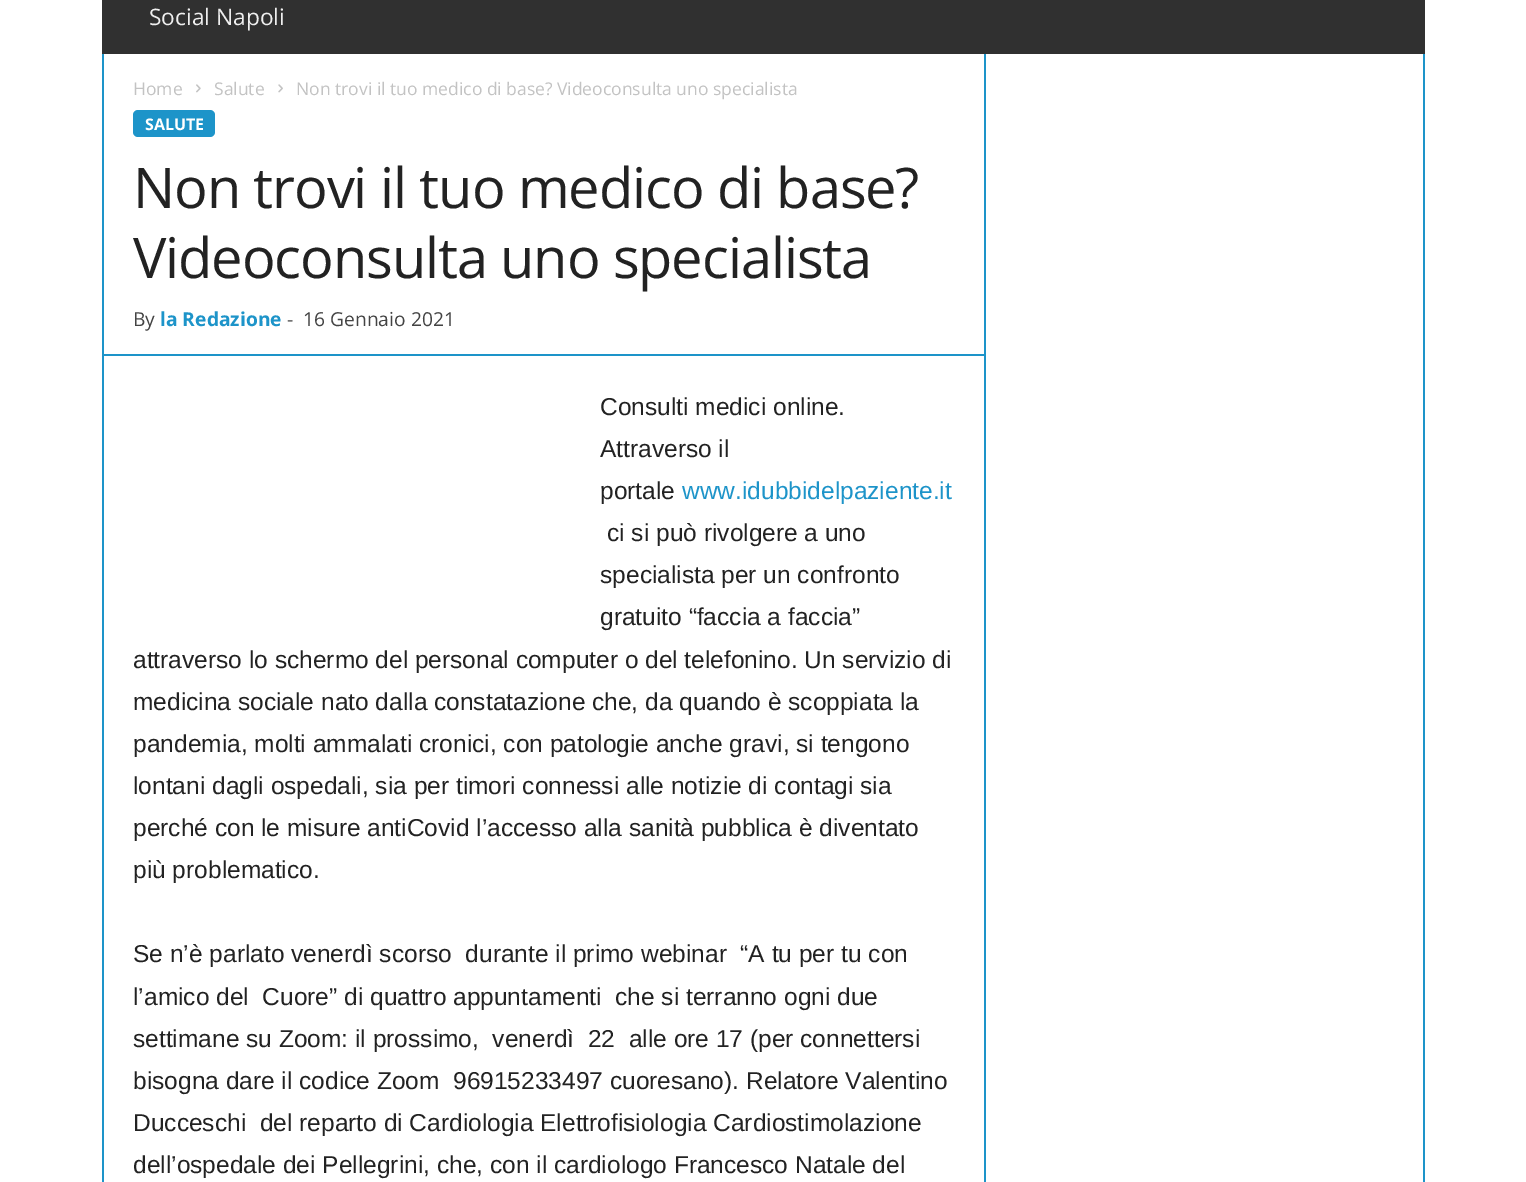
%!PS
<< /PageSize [1526 1182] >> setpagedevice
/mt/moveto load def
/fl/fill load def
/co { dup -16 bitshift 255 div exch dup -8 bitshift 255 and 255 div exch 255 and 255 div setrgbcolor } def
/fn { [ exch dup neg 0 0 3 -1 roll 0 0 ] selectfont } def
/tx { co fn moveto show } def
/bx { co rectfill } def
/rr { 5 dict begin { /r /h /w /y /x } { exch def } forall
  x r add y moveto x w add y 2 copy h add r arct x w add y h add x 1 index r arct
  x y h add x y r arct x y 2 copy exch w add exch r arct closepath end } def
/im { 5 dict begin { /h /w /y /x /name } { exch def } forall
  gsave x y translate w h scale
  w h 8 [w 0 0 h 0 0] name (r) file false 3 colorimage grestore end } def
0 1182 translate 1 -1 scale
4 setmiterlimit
0 0 1526 1182 16#FFFFFF bx
102 0 1323 54 16#303030 bx
102 54 2 1128 16#1D94C9 bx
(media/1.raw) 196 84 5 9 im
(media/2.raw) 278 84 5 9 im
133 110 82 27 5 rr fl
103 354 881 2 16#1D94C9 bx
984 54 2 1128 16#1D94C9 bx
1423 54 2 1128 16#1D94C9 bx
(Social Napoli) 149 25 /OpenSans-Regular 22.75 16#EFEFEF tx
(Home) 133 95 /OpenSans-Regular 17.5 16#C3C3C3 tx
(Salute) 214 95 /OpenSans-Regular 17.5 16#C3C3C3 tx
(Non trovi il tuo medico di base? Videoconsulta uno specialista) 296 95 /OpenSans-Regular 17.5 16#C3C3C3 tx
(SALUTE) 145 130 /OpenSans-Bold 16 16#FFFFFF tx
/OpenSans-Regular 56 fn
16#222222 co
133 208 mt -1.1 0 (Non trovi il tuo medico di base?) ashow
133 278 mt -1.1 0 (Videoconsulta uno specialista) ashow
(By) 133 326 /OpenSans-Regular 19.25 16#444444 tx
(la Redazione) 160 326 /OpenSans-Bold 19.25 16#1D94C9 tx
(-) 287 326 /OpenSans-Regular 19.25 16#444444 tx
(16 Gennaio 2021) 303 326 /OpenSans-Regular 19.25 16#444444 tx
(Consulti medici online.) 600 415 /LiberationSans-Regular 24.5 16#222222 tx
(Attraverso il) 600 457 /LiberationSans-Regular 24.5 16#222222 tx
(portale) 600 499 /LiberationSans-Regular 24.5 16#222222 tx
(www.idubbidelpaziente.it) 682 499 /LiberationSans-Regular 24.5 16#1D94C9 tx
(ci si può rivolgere a uno) 607 541 /LiberationSans-Regular 24.5 16#222222 tx
(specialista per un confronto) 600 583 /LiberationSans-Regular 24.5 16#222222 tx
(gratuito “faccia a faccia”) 600 625 /LiberationSans-Regular 24.5 16#222222 tx
(attraverso lo schermo del personal computer o del telefonino. Un servizio di) 133 668 /LiberationSans-Regular 24.5 16#222222 tx
(medicina sociale nato dalla constatazione che, da quando è scoppiata la) 133 710 /LiberationSans-Regular 24.5 16#222222 tx
(pandemia, molti ammalati cronici, con patologie anche gravi, si tengono) 133 752 /LiberationSans-Regular 24.5 16#222222 tx
(lontani dagli ospedali, sia per timori connessi alle notizie di contagi sia) 133 794 /LiberationSans-Regular 24.5 16#222222 tx
(perché con le misure antiCovid l’accesso alla sanità pubblica è diventato) 133 836 /LiberationSans-Regular 24.5 16#222222 tx
(più problematico.) 133 878 /LiberationSans-Regular 24.5 16#222222 tx
(Se n’è parlato venerdì scorso  durante il primo webinar  “A tu per tu con) 133 962 /LiberationSans-Regular 24.5 16#222222 tx
(l’amico del  Cuore” di quattro appuntamenti  che si terranno ogni due) 133 1005 /LiberationSans-Regular 24.5 16#222222 tx
(settimane su Zoom: il prossimo,  venerdì  22  alle ore 17 \(per connettersi) 133 1047 /LiberationSans-Regular 24.5 16#222222 tx
(bisogna dare il codice Zoom  96915233497 cuoresano\). Relatore Valentino) 133 1089 /LiberationSans-Regular 24.5 16#222222 tx
(Ducceschi  del reparto di Cardiologia Elettrofisiologia Cardiostimolazione) 133 1131 /LiberationSans-Regular 24.5 16#222222 tx
(dell’ospedale dei Pellegrini, che, con il cardiologo Francesco Natale del) 133 1173 /LiberationSans-Regular 24.5 16#222222 tx
showpage
